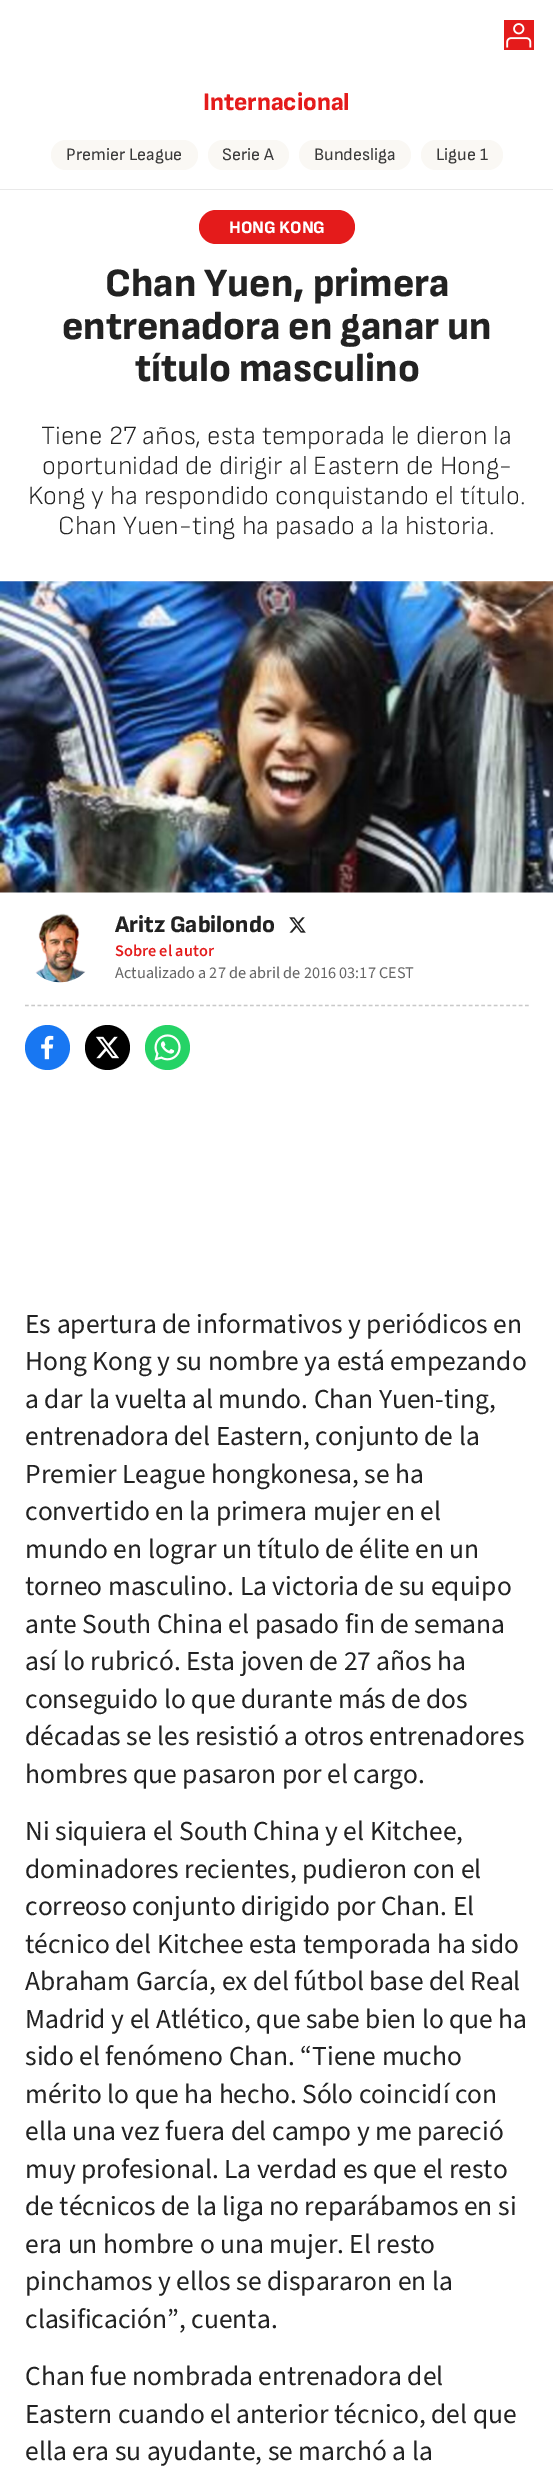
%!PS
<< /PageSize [553 2484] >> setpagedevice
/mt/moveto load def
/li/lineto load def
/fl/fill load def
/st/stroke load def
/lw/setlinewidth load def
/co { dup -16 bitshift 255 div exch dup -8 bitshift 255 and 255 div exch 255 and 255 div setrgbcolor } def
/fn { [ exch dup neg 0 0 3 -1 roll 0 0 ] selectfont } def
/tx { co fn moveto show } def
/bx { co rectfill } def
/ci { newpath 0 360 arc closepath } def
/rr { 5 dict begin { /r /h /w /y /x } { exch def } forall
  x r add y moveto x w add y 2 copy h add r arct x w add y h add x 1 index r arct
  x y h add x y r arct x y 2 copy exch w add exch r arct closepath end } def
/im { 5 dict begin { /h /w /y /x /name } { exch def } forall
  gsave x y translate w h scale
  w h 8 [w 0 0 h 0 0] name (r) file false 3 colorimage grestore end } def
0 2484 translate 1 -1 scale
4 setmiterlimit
0 0 553 2484 16#FFFFFF bx
504 20 30 30 16#E41B1B bx
(media/1.raw) 506 23 26 25 im
16#FAF8F4 co
51 140 147 30 15 rr fl
208 140 81 30 15 rr fl
299 140 112 30 15 rr fl
421 140 82 30 15 rr fl
0 189 553 1 16#E9E9E9 bx
16#E41B1B co
199 210 156 34 17 rr fl
(media/2.raw) 0 581 553 312 im
(media/3.raw) 35 913 51 70 im
(media/4.raw) 289 917 17 16 im
16#C9C9C9 co
1.2 lw
[3.75 2.5] 0 setdash
25 1005.5 mt 529 1005.5 li st
16#1877F2 co
47.5 1047.5 22.5 ci fl
(media/5.raw) 41 1035 13 25 im
16#000000 co
107.5 1047.5 22.5 ci fl
(media/6.raw) 96 1036 23 23 im
16#25D366 co
167.5 1047.5 22.5 ci fl
(media/7.raw) 154 1034 27 27 im
(Internacional) 203 110 /SofiaSans-ExtraBold 25 16#E41B1B tx
(Premier League) 66 160 /SofiaSans-Regular 17.5 16#3A3A3A tx
(Serie A) 222 160 /SofiaSans-Regular 17.5 16#3A3A3A tx
(Bundesliga) 314 160 /SofiaSans-Regular 17.5 16#3A3A3A tx
(Ligue 1) 436 160 /SofiaSans-Regular 17.5 16#3A3A3A tx
(HONG KONG) 229 233 /SofiaSans-ExtraBold 17.5 16#FFFFFF tx
(Chan Yuen, primera) 105 296 /SofiaSans-ExtraBold 40 16#222222 tx
(entrenadora en ganar un) 62 339 /SofiaSans-ExtraBold 40 16#222222 tx
(título masculino) 135 381 /SofiaSans-ExtraBold 40 16#222222 tx
(Tiene 27 años, esta temporada le dieron la) 41 444 /SofiaSans-Light 26.25 16#222222 tx
(oportunidad de dirigir al Eastern de Hong-) 42 474 /SofiaSans-Light 26.25 16#222222 tx
(Kong y ha respondido conquistando el título.) 28 504 /SofiaSans-Light 26.25 16#222222 tx
(Chan Yuen-ting ha pasado a la historia.) 58 534 /SofiaSans-Light 26.25 16#222222 tx
(Aritz Gabilondo) 115 932 /SofiaSans-ExtraBold 23.75 16#222222 tx
(Sobre el autor) 115 956 /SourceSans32-ExtraLight 16.25 16#E41B1B tx
(Actualizado a 27 de abril de 2016 03:17 CEST) 115 978 /SourceSans3-ExtraLight 16.25 16#656565 tx
(Es apertura de informativos y periódicos en) 25 1333 /SourceSans3-ExtraLight 27.5 16#222222 tx
(Hong Kong y su nombre ya está empezando) 25 1370 /SourceSans3-ExtraLight 27.5 16#222222 tx
(a dar la vuelta al mundo. Chan Yuen-ting,) 25 1408 /SourceSans3-ExtraLight 27.5 16#222222 tx
(entrenadora del Eastern, conjunto de la) 25 1445 /SourceSans3-ExtraLight 27.5 16#222222 tx
(Premier League hongkonesa, se ha) 25 1483 /SourceSans3-ExtraLight 27.5 16#222222 tx
(convertido en la primera mujer en el) 25 1520 /SourceSans3-ExtraLight 27.5 16#222222 tx
(mundo en lograr un título de élite en un) 25 1558 /SourceSans3-ExtraLight 27.5 16#222222 tx
(torneo masculino. La victoria de su equipo) 25 1595 /SourceSans3-ExtraLight 27.5 16#222222 tx
(ante South China el pasado fin de semana) 25 1633 /SourceSans3-ExtraLight 27.5 16#222222 tx
(así lo rubricó. Esta joven de 27 años ha) 25 1670 /SourceSans3-ExtraLight 27.5 16#222222 tx
(conseguido lo que durante más de dos) 25 1708 /SourceSans3-ExtraLight 27.5 16#222222 tx
(décadas se les resistió a otros entrenadores) 25 1745 /SourceSans3-ExtraLight 27.5 16#222222 tx
(hombres que pasaron por el cargo.) 25 1783 /SourceSans3-ExtraLight 27.5 16#222222 tx
(Ni siquiera el South China y el Kitchee,) 25 1840 /SourceSans3-ExtraLight 27.5 16#222222 tx
(dominadores recientes, pudieron con el) 25 1878 /SourceSans3-ExtraLight 27.5 16#222222 tx
(correoso conjunto dirigido por Chan. El) 25 1915 /SourceSans3-ExtraLight 27.5 16#222222 tx
(técnico del Kitchee esta temporada ha sido) 25 1953 /SourceSans3-ExtraLight 27.5 16#222222 tx
(Abraham García, ex del fútbol base del Real) 25 1990 /SourceSans3-ExtraLight 27.5 16#222222 tx
(Madrid y el Atlético, que sabe bien lo que ha) 25 2028 /SourceSans3-ExtraLight 27.5 16#222222 tx
(sido el fenómeno Chan. “Tiene mucho) 25 2065 /SourceSans3-ExtraLight 27.5 16#222222 tx
(mérito lo que ha hecho. Sólo coincidí con) 25 2103 /SourceSans3-ExtraLight 27.5 16#222222 tx
(ella una vez fuera del campo y me pareció) 25 2140 /SourceSans3-ExtraLight 27.5 16#222222 tx
(muy profesional. La verdad es que el resto) 25 2178 /SourceSans3-ExtraLight 27.5 16#222222 tx
(de técnicos de la liga no reparábamos en si) 25 2215 /SourceSans3-ExtraLight 27.5 16#222222 tx
(era un hombre o una mujer. El resto) 25 2253 /SourceSans3-ExtraLight 27.5 16#222222 tx
(pinchamos y ellos se dispararon en la) 25 2290 /SourceSans3-ExtraLight 27.5 16#222222 tx
(clasificación”, cuenta.) 25 2328 /SourceSans3-ExtraLight 27.5 16#222222 tx
(Chan fue nombrada entrenadora del) 25 2385 /SourceSans3-ExtraLight 27.5 16#222222 tx
(Eastern cuando el anterior técnico, del que) 25 2423 /SourceSans3-ExtraLight 27.5 16#222222 tx
(ella era su ayudante, se marchó a la) 25 2460 /SourceSans3-ExtraLight 27.5 16#222222 tx
showpage
